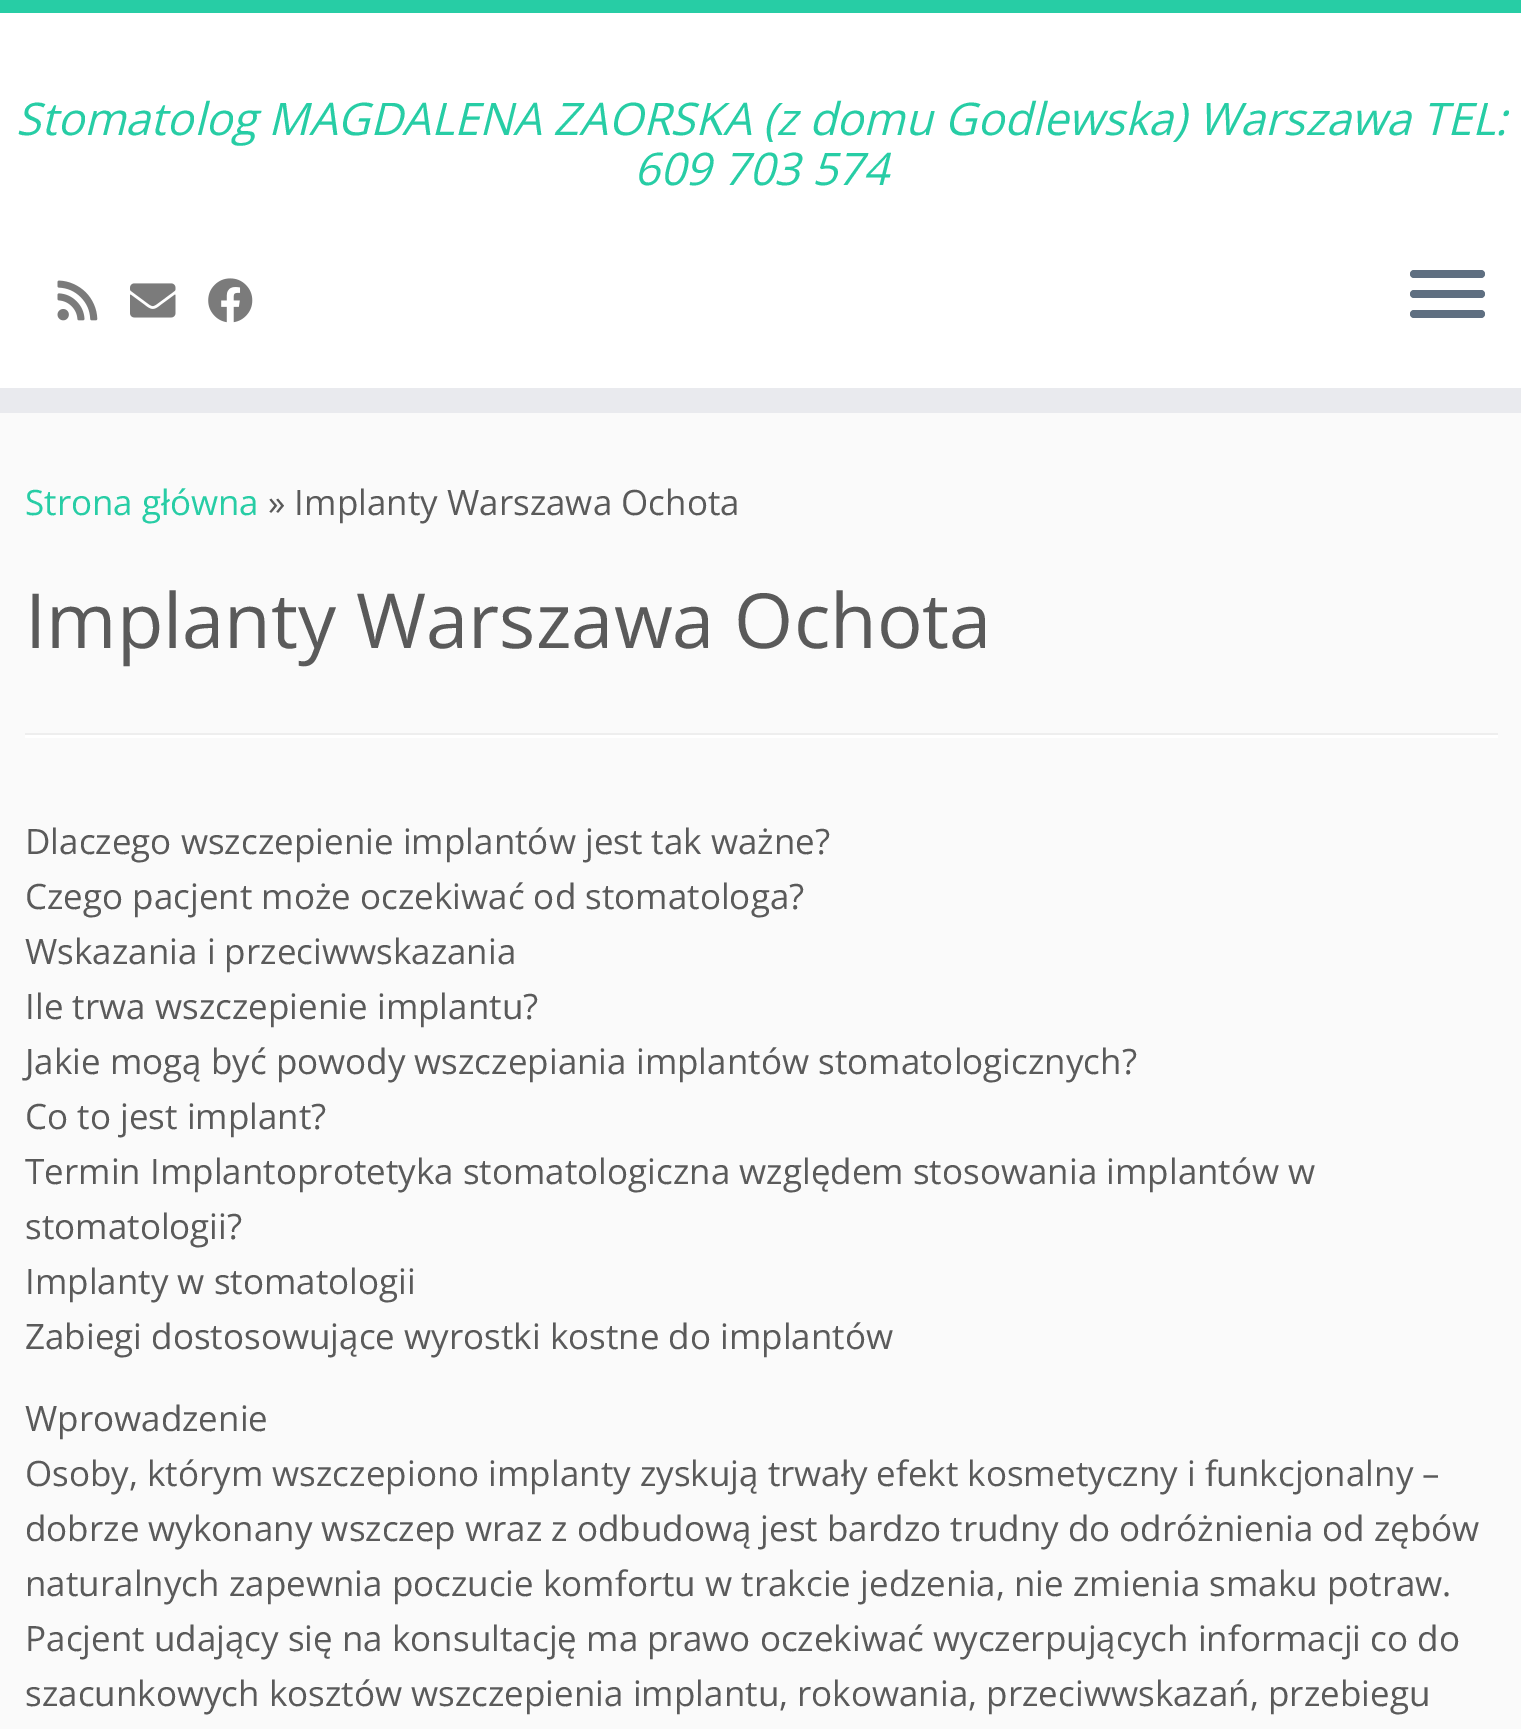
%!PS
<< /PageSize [1521 1729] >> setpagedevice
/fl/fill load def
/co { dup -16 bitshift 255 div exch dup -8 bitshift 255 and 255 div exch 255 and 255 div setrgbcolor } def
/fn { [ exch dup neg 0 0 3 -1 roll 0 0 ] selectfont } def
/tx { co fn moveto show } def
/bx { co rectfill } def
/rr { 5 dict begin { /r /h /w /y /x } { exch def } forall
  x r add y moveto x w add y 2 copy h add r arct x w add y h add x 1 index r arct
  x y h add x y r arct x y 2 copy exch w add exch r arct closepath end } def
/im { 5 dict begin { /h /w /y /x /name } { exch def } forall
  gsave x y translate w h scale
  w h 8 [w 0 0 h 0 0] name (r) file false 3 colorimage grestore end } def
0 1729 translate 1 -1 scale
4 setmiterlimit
0 0 1521 1729 16#FAFAFA bx
0 13 1521 375 16#FFFFFF bx
0 0 1521 13 16#27CDA5 bx
0 388 1521 25 16#E9EAEE bx
(media/1.raw) 57 280 41 41 im
(media/2.raw) 130 283 46 35 im
(media/3.raw) 208 278 45 45 im
16#5F6F81 co
1410 270 75 8 4 rr fl
1410 290 75 8 4 rr fl
1410 310 75 8 4 rr fl
25 733 1473 2 16#EEEEEE bx
25 735 1473 3 16#FFFFFF bx
(Stomatolog MAGDALENA ZAORSKA \(z domu Godlewska\) Warszawa TEL:) 16 135 /OpenSans-Italic 45 16#27CDA5 tx
(609 703 574) 634 185 /OpenSans-Italic 45 16#27CDA5 tx
(Strona główna) 25 515 /OpenSans-Regular 35 16#27CDA5 tx
(» Implanty Warszawa Ochota) 268 515 /OpenSans-Regular 35 16#5A5A5A tx
(Implanty Warszawa Ochota) 25 648 /OpenSans-Regular 76 16#5A5A5A tx
(Dlaczego wszczepienie implantów jest tak ważne?) 25 854 /OpenSans-Regular 35 16#5A5A5A tx
(Czego pacjent może oczekiwać od stomatologa?) 25 909 /OpenSans-Regular 35 16#5A5A5A tx
(Wskazania i przeciwwskazania) 25 964 /OpenSans-Regular 35 16#5A5A5A tx
(Ile trwa wszczepienie implantu?) 25 1019 /OpenSans-Regular 35 16#5A5A5A tx
(Jakie mogą być powody wszczepiania implantów stomatologicznych?) 25 1074 /OpenSans-Regular 35 16#5A5A5A tx
(Co to jest implant?) 25 1129 /OpenSans-Regular 35 16#5A5A5A tx
(Termin Implantoprotetyka stomatologiczna względem stosowania implantów w) 25 1184 /OpenSans-Regular 35 16#5A5A5A tx
(stomatologii?) 25 1239 /OpenSans-Regular 35 16#5A5A5A tx
(Implanty w stomatologii) 25 1294 /OpenSans-Regular 35 16#5A5A5A tx
(Zabiegi dostosowujące wyrostki kostne do implantów) 25 1349 /OpenSans-Regular 35 16#5A5A5A tx
(Wprowadzenie) 25 1431 /OpenSans-Regular 35 16#5A5A5A tx
(Osoby, którym wszczepiono implanty zyskują trwały efekt kosmetyczny i funkcjonalny –) 25 1486 /OpenSans-Regular 35 16#5A5A5A tx
(dobrze wykonany wszczep wraz z odbudową jest bardzo trudny do odróżnienia od zębów) 25 1541 /OpenSans-Regular 35 16#5A5A5A tx
(naturalnych zapewnia poczucie komfortu w trakcie jedzenia, nie zmienia smaku potraw.) 25 1596 /OpenSans-Regular 35 16#5A5A5A tx
(Pacjent udający się na konsultację ma prawo oczekiwać wyczerpujących informacji co do) 25 1651 /OpenSans-Regular 35 16#5A5A5A tx
(szacunkowych kosztów wszczepienia implantu, rokowania, przeciwwskazań, przebiegu) 25 1706 /OpenSans-Regular 35 16#5A5A5A tx
showpage
